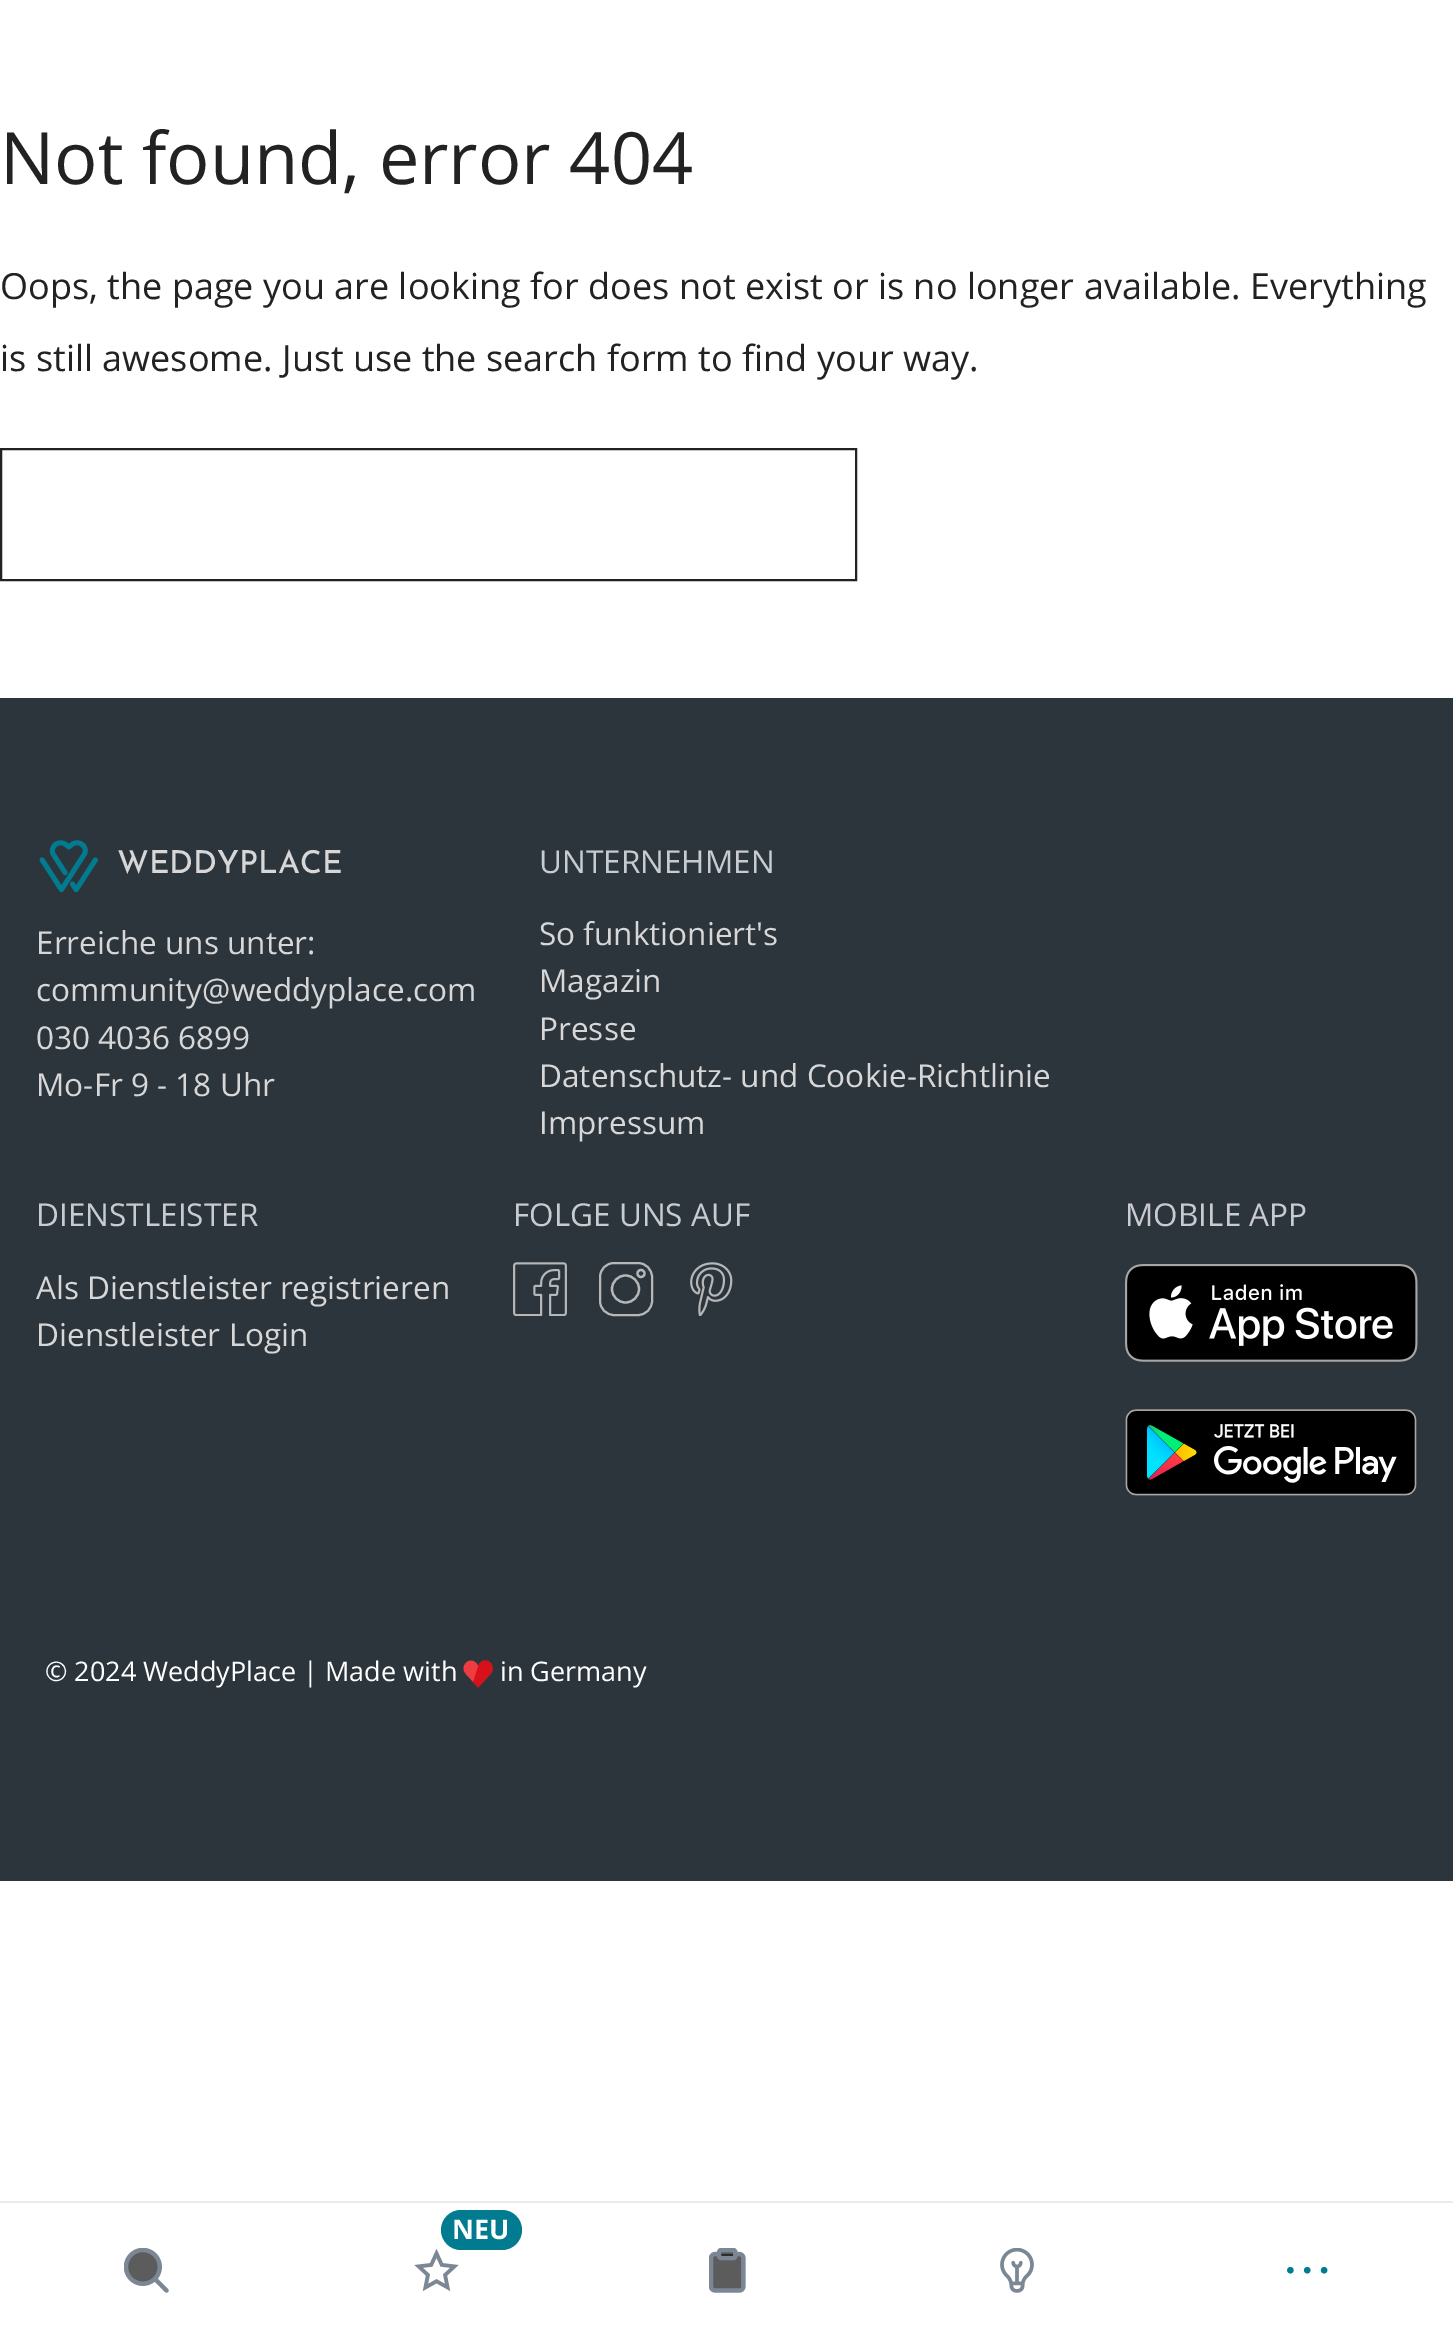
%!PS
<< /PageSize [1453 2344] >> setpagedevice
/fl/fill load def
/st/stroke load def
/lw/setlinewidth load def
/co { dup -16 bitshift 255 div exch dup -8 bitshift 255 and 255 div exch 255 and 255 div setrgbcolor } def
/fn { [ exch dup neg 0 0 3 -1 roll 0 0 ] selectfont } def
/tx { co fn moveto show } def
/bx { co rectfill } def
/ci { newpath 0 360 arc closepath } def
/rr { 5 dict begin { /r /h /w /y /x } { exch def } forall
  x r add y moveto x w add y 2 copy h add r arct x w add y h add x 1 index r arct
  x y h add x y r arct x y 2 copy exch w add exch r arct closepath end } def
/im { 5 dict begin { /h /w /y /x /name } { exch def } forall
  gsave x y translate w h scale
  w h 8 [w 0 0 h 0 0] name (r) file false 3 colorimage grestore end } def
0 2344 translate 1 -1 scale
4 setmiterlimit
0 0 1453 2344 16#FFFFFF bx
16#222222 co
2 lw
1 449 855 131 rectstroke
0 698 1453 1183 16#2D353C bx
(media/1.raw) 39 840 59 53 im
(media/2.raw) 513 1262 54 54 im
16#B5B7B8 co
600 1263 52 52 14 rr st
2.2 lw
625.5 1289 13.5 ci st
641 1273.5 3.5 ci st
(media/3.raw) 690 1262 43 54 im
(media/4.raw) 1125 1264 293 98 im
(media/5.raw) 1125 1409 292 87 im
(media/6.raw) 463 1660 30 28 im
0 2201 1453 2 16#EBEBEB bx
(media/7.raw) 414 2248 45 44 im
16#007B90 co
441 2210 81 40 20 rr fl
(media/8.raw) 124 2248 45 45 im
(media/9.raw) 709 2248 37 45 im
(media/10.raw) 1000 2248 34 45 im
(media/11.raw) 1287 2266 41 8 im
(Not found, error 404) 0 184 /OpenSans-Regular 72 16#222222 tx
(Oops, the page you are looking for does not exist or is no longer available. Everything) 0 299 /OpenSans-Regular 36 16#222222 tx
(is still awesome. Just use the search form to find your way.) 0 371 /OpenSans-Regular 36 16#222222 tx
(WEDDYPLACE) 117 873 /JosefinSans-Thin 31.5 16#D7D7D7 tx
(Erreiche uns unter:) 36 954 /OpenSans-Regular 31.5 16#D7D7D7 tx
(community@weddyplace.com) 36 1001 /OpenSans-Regular 31.5 16#D7D7D7 tx
(030 4036 6899) 36 1049 /OpenSans-Regular 31.5 16#D7D7D7 tx
(Mo-Fr 9 - 18 Uhr) 36 1096 /OpenSans-Regular 31.5 16#D7D7D7 tx
(UNTERNEHMEN) 539 873 /OpenSans-Regular 31.5 16#C8CCD0 tx
(So funktioniert's) 539 945 /OpenSans-Regular 31.5 16#D7D7D7 tx
(Magazin) 539 992 /OpenSans-Regular 31.5 16#D7D7D7 tx
(Presse) 539 1040 /OpenSans-Regular 31.5 16#D7D7D7 tx
(Datenschutz- und Cookie-Richtlinie) 539 1087 /OpenSans-Regular 31.5 16#D7D7D7 tx
(Impressum) 539 1134 /OpenSans-Regular 31.5 16#D7D7D7 tx
(DIENSTLEISTER) 36 1226 /OpenSans-Regular 31.5 16#C8CCD0 tx
(Als Dienstleister registrieren) 36 1299 /OpenSans-Regular 31.5 16#D7D7D7 tx
(Dienstleister Login) 36 1346 /OpenSans-Regular 31.5 16#D7D7D7 tx
(FOLGE UNS AUF) 513 1226 /OpenSans-Regular 31.5 16#C8CCD0 tx
(MOBILE APP) 1125 1226 /OpenSans-Regular 31.5 16#C8CCD0 tx
(© 2024 WeddyPlace | Made with) 45 1681 /OpenSans-Regular 27 16#FFFFFF tx
(in Germany) 500 1681 /OpenSans-Regular 27 16#FFFFFF tx
(NEU) 452 2239 /OpenSans-Bold 27 16#FFFFFF tx
showpage
